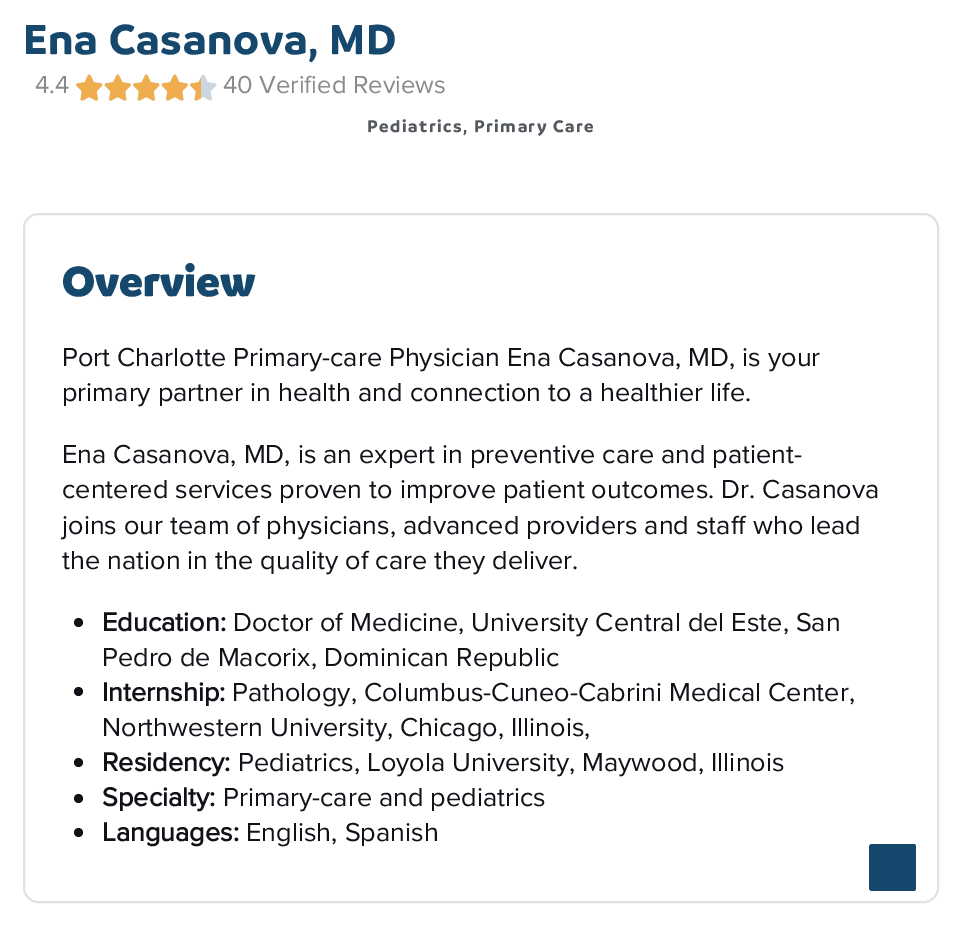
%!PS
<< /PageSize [961 936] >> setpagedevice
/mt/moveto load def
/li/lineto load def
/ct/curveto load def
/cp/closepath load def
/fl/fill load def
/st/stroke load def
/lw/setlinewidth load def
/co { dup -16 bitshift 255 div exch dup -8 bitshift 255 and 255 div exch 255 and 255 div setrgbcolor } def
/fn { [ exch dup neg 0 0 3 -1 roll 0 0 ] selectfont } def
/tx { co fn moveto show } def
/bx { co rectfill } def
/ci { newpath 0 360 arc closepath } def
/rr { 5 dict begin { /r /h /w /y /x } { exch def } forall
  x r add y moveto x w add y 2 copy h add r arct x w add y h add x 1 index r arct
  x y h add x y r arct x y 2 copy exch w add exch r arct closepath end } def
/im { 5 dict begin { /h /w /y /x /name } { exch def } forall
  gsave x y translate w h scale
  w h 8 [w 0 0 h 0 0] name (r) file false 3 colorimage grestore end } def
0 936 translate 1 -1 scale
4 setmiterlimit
0 0 961 936 16#FFFFFF bx
(media/1.raw) 76 74 27 27 im
(media/2.raw) 76 74 27 27 im
(media/3.raw) 104 74 27 27 im
(media/4.raw) 104 74 27 27 im
(media/1.raw) 133 74 27 27 im
(media/2.raw) 133 74 27 27 im
(media/3.raw) 161 74 27 27 im
(media/4.raw) 161 74 27 27 im
(media/1.raw) 190 74 27 27 im
(media/5.raw) 190 77 11 24 im
16#E1E2E4 co
2 lw
24 214 914 688 14 rr st
16#101218 co
78.5 622.5 4.5 ci fl
78.5 691.5 4.5 ci fl
78.5 762.5 4.5 ci fl
78.5 798.5 4.5 ci fl
78.5 832.5 4.5 ci fl
16#16486D co
914 891 mt 872 891 li 871 891 869 890 869 888 ct 869 847 li 869 845 871 844 872 844 ct 914 844 li 915 844 916 845 916 847 ct 916 888 li 916 890 915 891 914 891 ct cp fl
/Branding-Bold 45 fn
23 54 mt .75 0 (Ena Casanova, MD) ashow
(4.4) 35 93 /ProximaNova-Regular 25.5 16#888A8B tx
(40) 223 93 /ProximaNova-Regular 25.5 16#888A8B tx
(Verified Reviews) 259 93 /ProximaNova-Regular 25.5 16#888A8B tx
/Branding-Bold 18 fn
16#54595F co
367 132 mt 1.5 0 (Pediatrics, Primary Care) ashow
(Overview) 62 296 /Branding-Black 45 16#16486D tx
(Port Charlotte Primary-care Physician Ena Casanova, MD, is your) 62 366 /ProximaNova-Regular 27 16#101218 tx
(primary partner in health and connection to a healthier life.) 62 401 /ProximaNova-Regular 27 16#101218 tx
(Ena Casanova, MD, is an expert in preventive care and patient-) 62 463 /ProximaNova-Regular 27 16#101218 tx
(centered services proven to improve patient outcomes. Dr. Casanova) 62 498 /ProximaNova-Regular 27 16#101218 tx
(joins our team of physicians, advanced providers and staff who lead) 62 534 /ProximaNova-Regular 27 16#101218 tx
(the nation in the quality of care they deliver.) 62 569 /ProximaNova-Regular 27 16#101218 tx
(Education:) 102 631 /ProximaNova-Bold 27 16#101218 tx
(Doctor of Medicine, University Central del Este, San) 233 631 /ProximaNova-Regular 27 16#101218 tx
(Pedro de Macorix, Dominican Republic) 102 666 /ProximaNova-Regular 27 16#101218 tx
(Internship:) 102 701 /ProximaNova-Bold 27 16#101218 tx
(Pathology, Columbus-Cuneo-Cabrini Medical Center,) 232 701 /ProximaNova-Regular 27 16#101218 tx
(Northwestern University, Chicago, Illinois,) 102 736 /ProximaNova-Regular 27 16#101218 tx
(Residency:) 102 771 /ProximaNova-Bold 27 16#101218 tx
(Pediatrics, Loyola University, Maywood, Illinois) 238 771 /ProximaNova-Regular 27 16#101218 tx
(Specialty:) 102 806 /ProximaNova-Bold 27 16#101218 tx
(Primary-care and pediatrics) 223 806 /ProximaNova-Regular 27 16#101218 tx
(Languages:) 102 841 /ProximaNova-Bold 27 16#101218 tx
(English, Spanish) 246 841 /ProximaNova-Regular 27 16#101218 tx
showpage
